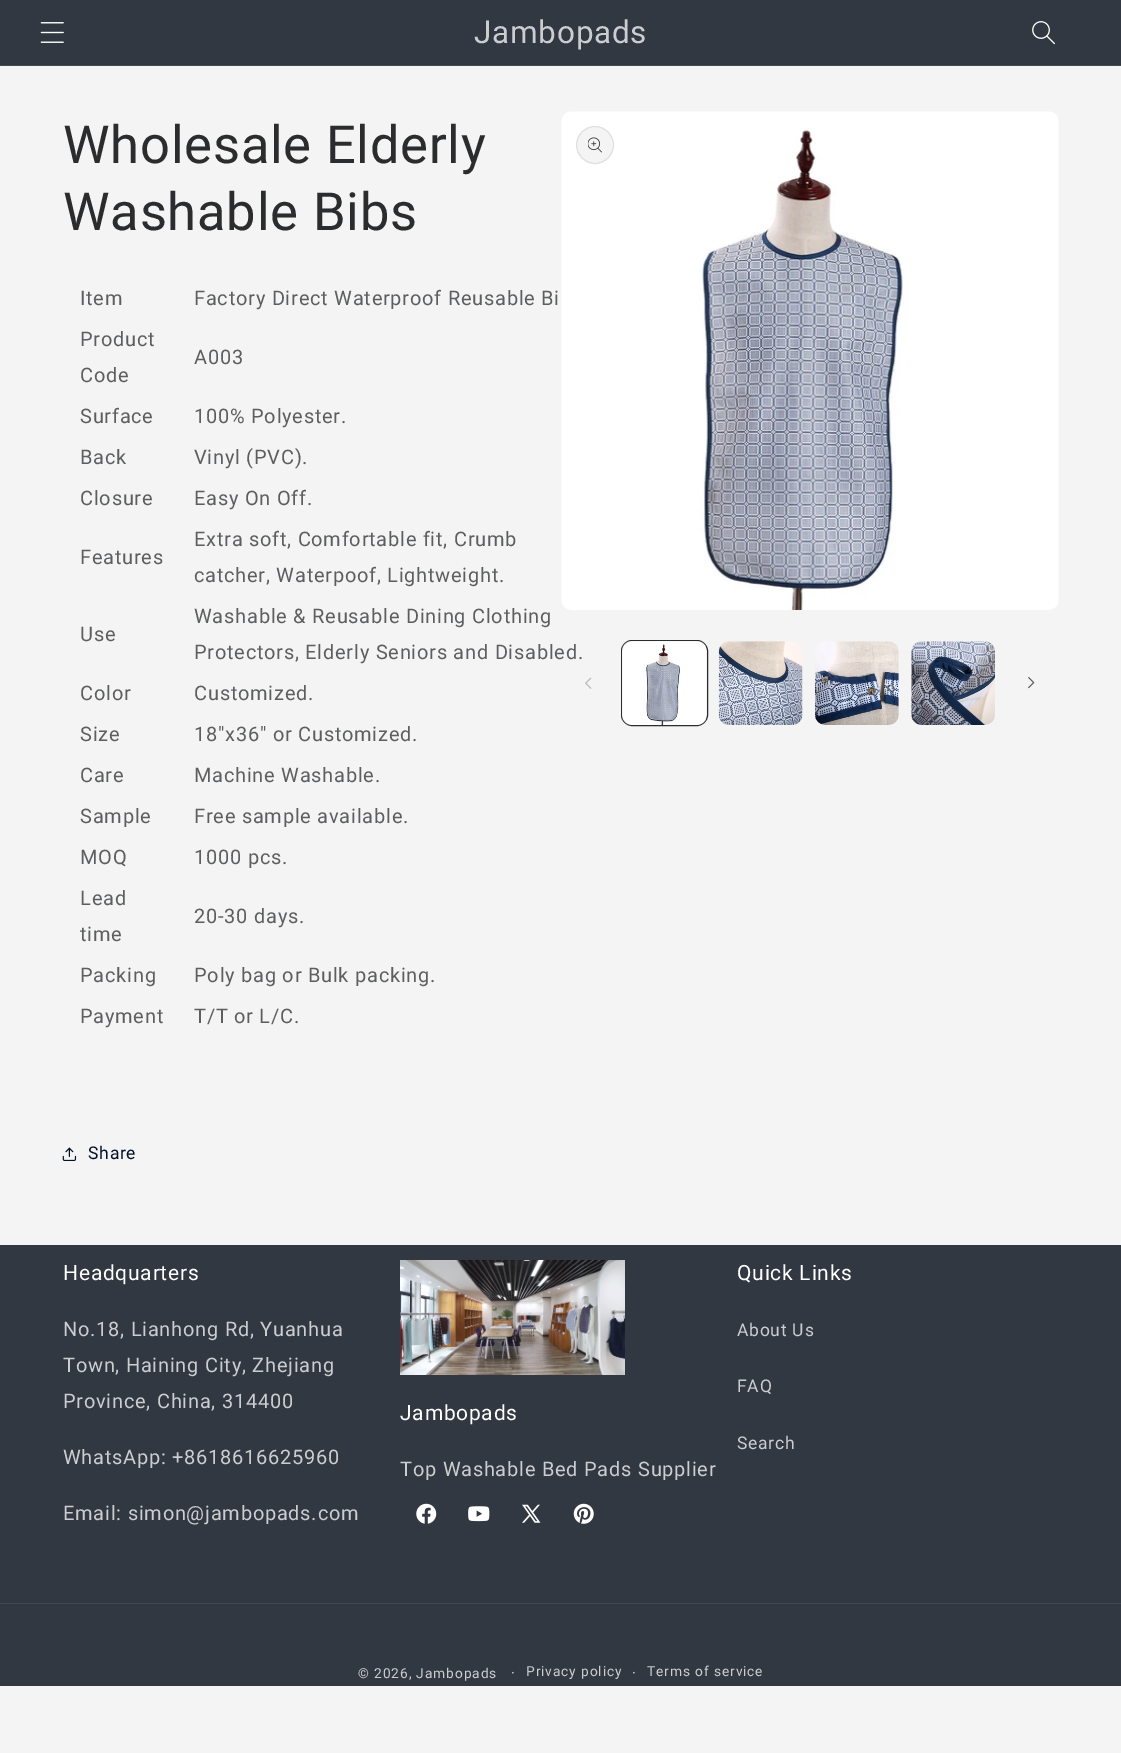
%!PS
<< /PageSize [1121 1753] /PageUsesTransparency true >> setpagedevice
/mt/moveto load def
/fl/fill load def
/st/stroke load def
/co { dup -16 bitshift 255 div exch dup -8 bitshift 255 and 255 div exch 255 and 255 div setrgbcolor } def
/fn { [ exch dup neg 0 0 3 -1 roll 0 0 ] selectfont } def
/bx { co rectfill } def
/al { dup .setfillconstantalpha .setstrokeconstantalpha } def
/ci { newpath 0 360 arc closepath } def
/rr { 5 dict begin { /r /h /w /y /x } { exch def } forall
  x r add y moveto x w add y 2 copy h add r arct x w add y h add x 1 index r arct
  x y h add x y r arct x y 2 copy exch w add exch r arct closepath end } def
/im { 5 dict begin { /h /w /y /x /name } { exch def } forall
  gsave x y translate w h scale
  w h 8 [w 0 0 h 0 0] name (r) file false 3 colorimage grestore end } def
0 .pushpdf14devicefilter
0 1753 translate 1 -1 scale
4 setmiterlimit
0 0 1121 1753 16#F4F4F4 bx
0 0 1121 65 16#323841 bx
0 65 1121 1 16#424850 bx
(media/1.raw) 40 22 24 21 im
(media/2.raw) 1032 21 23 24 im
(media/3.raw) 62 1147 15 14 im
(media/4.raw) 561 111 498 499 im
16#F4F4F4 co
595 145 19 ci fl
0.1 al
16#2B2C2D co
595 145 18.5 ci st
1 al
(media/5.raw) 588 137 14 16 im
(media/6.raw) 585 677 7 12 im
621.5 640.5 86 85 10.5 rr st
(media/7.raw) 622 641 84 84 im
(media/8.raw) 718 641 85 84 im
(media/9.raw) 815 641 84 84 im
(media/10.raw) 911 641 84 84 im
(media/11.raw) 1028 677 7 12 im
0 1245 1121 441 16#323841 bx
(media/12.raw) 400 1260 225 115 im
(media/13.raw) 416 1503 21 21 im
(media/14.raw) 468 1506 22 16 im
(media/15.raw) 522 1504 19 19 im
(media/16.raw) 573 1503 21 21 im
0 1603 1121 1 16#424850 bx
/Roboto-Regular 31.5 fn
16#CCCDD0 co
474 43 mt .75 0 (Jambopads) ashow
/Roboto-Regular 52.5 fn
16#2B2C2D co
63 163 mt .75 0 (Wholesale Elderly) ashow
63 230 mt .75 0 (Washable Bibs) ashow
/Roboto-Regular 20 fn
16#5D5E5F co
80 305 mt .75 0 (Item) ashow
194 305 mt .75 0 (Factory Direct Waterproof Reusable Bi) ashow
80 346 mt .75 0 (Product) ashow
80 382 mt .75 0 (Code) ashow
194 364 mt .75 0 (A003) ashow
80 423 mt .75 0 (Surface) ashow
194 423 mt .75 0 (100% Polyester.) ashow
80 464 mt .75 0 (Back) ashow
194 464 mt .75 0 (Vinyl \(PVC\).) ashow
80 505 mt .75 0 (Closure) ashow
194 505 mt .75 0 (Easy On Off.) ashow
80 564 mt .75 0 (Features) ashow
194 546 mt .75 0 (Extra soft, Comfortable fit, Crumb) ashow
194 582 mt .75 0 (catcher, Waterpoof, Lightweight.) ashow
80 641 mt .75 0 (Use) ashow
194 623 mt .75 0 (Washable & Reusable Dining Clothing) ashow
194 659 mt .75 0 (Protectors, Elderly Seniors and Disabled.) ashow
80 700 mt .75 0 (Color) ashow
194 700 mt .75 0 (Customized.) ashow
80 741 mt .75 0 (Size) ashow
194 741 mt .75 0 (18"x36" or Customized.) ashow
80 782 mt .75 0 (Care) ashow
194 782 mt .75 0 (Machine Washable.) ashow
80 823 mt .75 0 (Sample) ashow
194 823 mt .75 0 (Free sample available.) ashow
80 864 mt .75 0 (MOQ) ashow
194 864 mt .75 0 (1000 pcs.) ashow
80 905 mt .75 0 (Lead) ashow
80 941 mt .75 0 (time) ashow
194 923 mt .75 0 (20-30 days.) ashow
80 982 mt .75 0 (Packing) ashow
194 982 mt .75 0 (Poly bag or Bulk packing.) ashow
80 1023 mt .75 0 (Payment) ashow
194 1023 mt .75 0 (T/T or L/C.) ashow
/Roboto-Regular 17.5 fn
16#001128 co
88 1159 mt .75 0 (Share) ashow
/Roboto-Regular 21 fn
16#FFFFFF co
63 1280 mt .75 0 (Headquarters) ashow
/Roboto-Regular 20 fn
16#CCCDD0 co
63 1336 mt .75 0 (No.18, Lianhong Rd, Yuanhua) ashow
63 1372 mt .75 0 (Town, Haining City, Zhejiang) ashow
63 1408 mt .75 0 (Province, China, 314400) ashow
63 1464 mt .75 0 (WhatsApp: +8618616625960) ashow
63 1520 mt .75 0 (Email: simon@jambopads.com) ashow
/Roboto-Regular 21 fn
16#FFFFFF co
400 1420 mt .75 0 (Jambopads) ashow
/Roboto-Regular 20 fn
16#CCCDD0 co
400 1476 mt .75 0 (Top Washable Bed Pads Supplier) ashow
/Roboto-Regular 21 fn
16#FFFFFF co
737 1280 mt .75 0 (Quick Links) ashow
/Roboto-Regular 17.5 fn
16#CCCDD0 co
737 1336 mt .75 0 (About Us) ashow
737 1392 mt .75 0 (FAQ) ashow
737 1449 mt .75 0 (Search) ashow
/Roboto-Regular 13.75 fn
358 1678 mt .9 0 (© 2026, Jambopads) ashow
/Roboto-Regular 15 fn
511 1678 mt .9 0 (·) ashow
/Roboto-Regular 13.75 fn
526 1676 mt .9 0 (Privacy policy) ashow
/Roboto-Regular 15 fn
632 1678 mt .9 0 (·) ashow
/Roboto-Regular 13.75 fn
647 1676 mt .9 0 (Terms of service) ashow
.poppdf14devicefilter showpage
